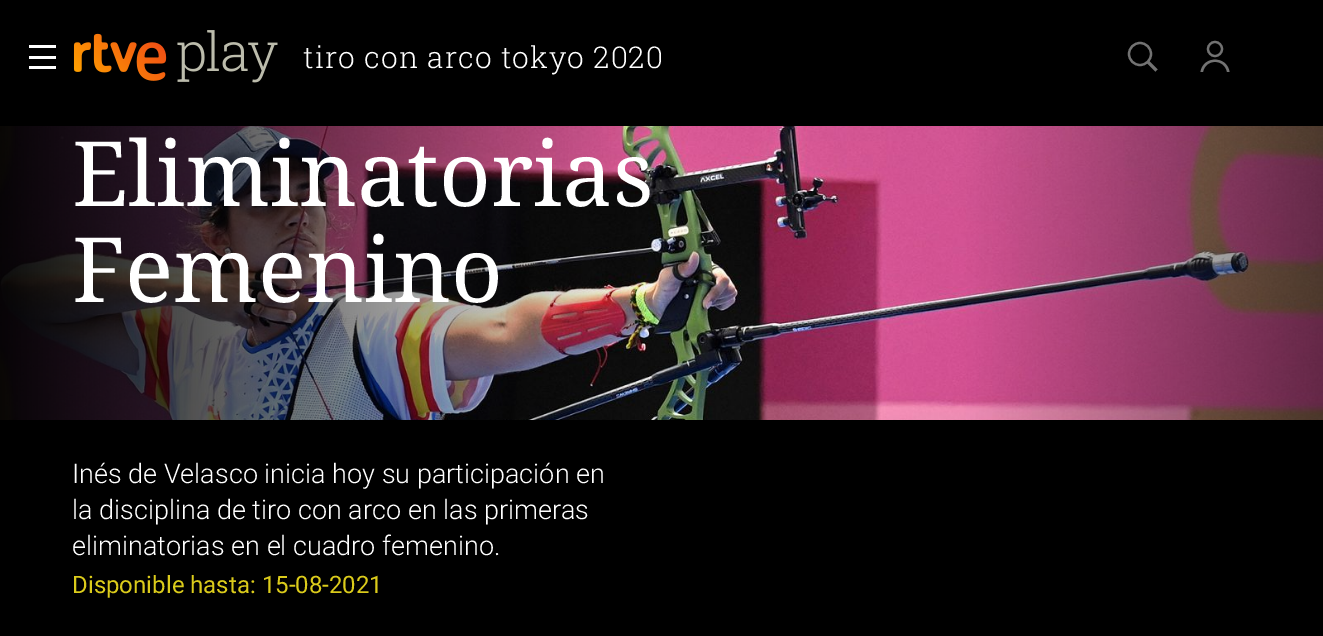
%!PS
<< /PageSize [1323 636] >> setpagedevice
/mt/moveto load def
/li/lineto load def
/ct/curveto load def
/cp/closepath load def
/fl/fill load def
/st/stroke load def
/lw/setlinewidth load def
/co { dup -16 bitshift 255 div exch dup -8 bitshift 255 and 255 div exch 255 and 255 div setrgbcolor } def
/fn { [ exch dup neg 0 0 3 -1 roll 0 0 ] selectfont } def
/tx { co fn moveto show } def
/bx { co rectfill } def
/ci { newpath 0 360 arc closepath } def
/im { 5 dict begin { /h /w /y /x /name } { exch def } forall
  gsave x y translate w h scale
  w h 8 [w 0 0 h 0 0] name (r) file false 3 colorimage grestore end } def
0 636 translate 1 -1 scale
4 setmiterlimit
0 0 1323 636 16#FFFFFF bx
0 0 1323 126 16#000000 bx
29 45 27 3 16#FFFFFF bx
29 56 27 3 16#FFFFFF bx
29 66 27 3 16#FFFFFF bx
(media/1.raw) 73 33 94 48 im
(media/2.raw) 177 30 101 53 im
16#727272 co
2.2 lw
1140 54 11 ci st
3 lw
1148 62 mt 1156.5 70.5 li st
1203 72 mt 1205.5 58.5 1224.5 58.5 1227 72 ct 1229.5 72 li 1227 55.5 1203 55.5 1200.5 72 ct cp fl
2.2 lw
1215 49 7 ci st
(media/3.raw) 0 126 1323 294 im
0 420 1323 216 16#000000 bx
/RobotoSlab-Light 30 fn
16#FFFFFF co
303 68 mt 1 0 (tiro con arco tokyo 2020) ashow
(Eliminatorias) 72 206 /NotoSerif-Regular 90 16#FFFFFF tx
(Femenino) 72 302 /NotoSerif-Regular 90 16#FFFFFF tx
(Inés de Velasco inicia hoy su participación en) 72 483 /Roboto-Light 27 16#FFFFFF tx
(la disciplina de tiro con arco en las primeras) 72 519 /Roboto-Light 27 16#FFFFFF tx
(eliminatorias en el cuadro femenino.) 72 555 /Roboto-Light 27 16#FFFFFF tx
(Disponible hasta: 15-08-2021) 72 593 /Roboto-Regular 24 16#DBCB1B tx
showpage
